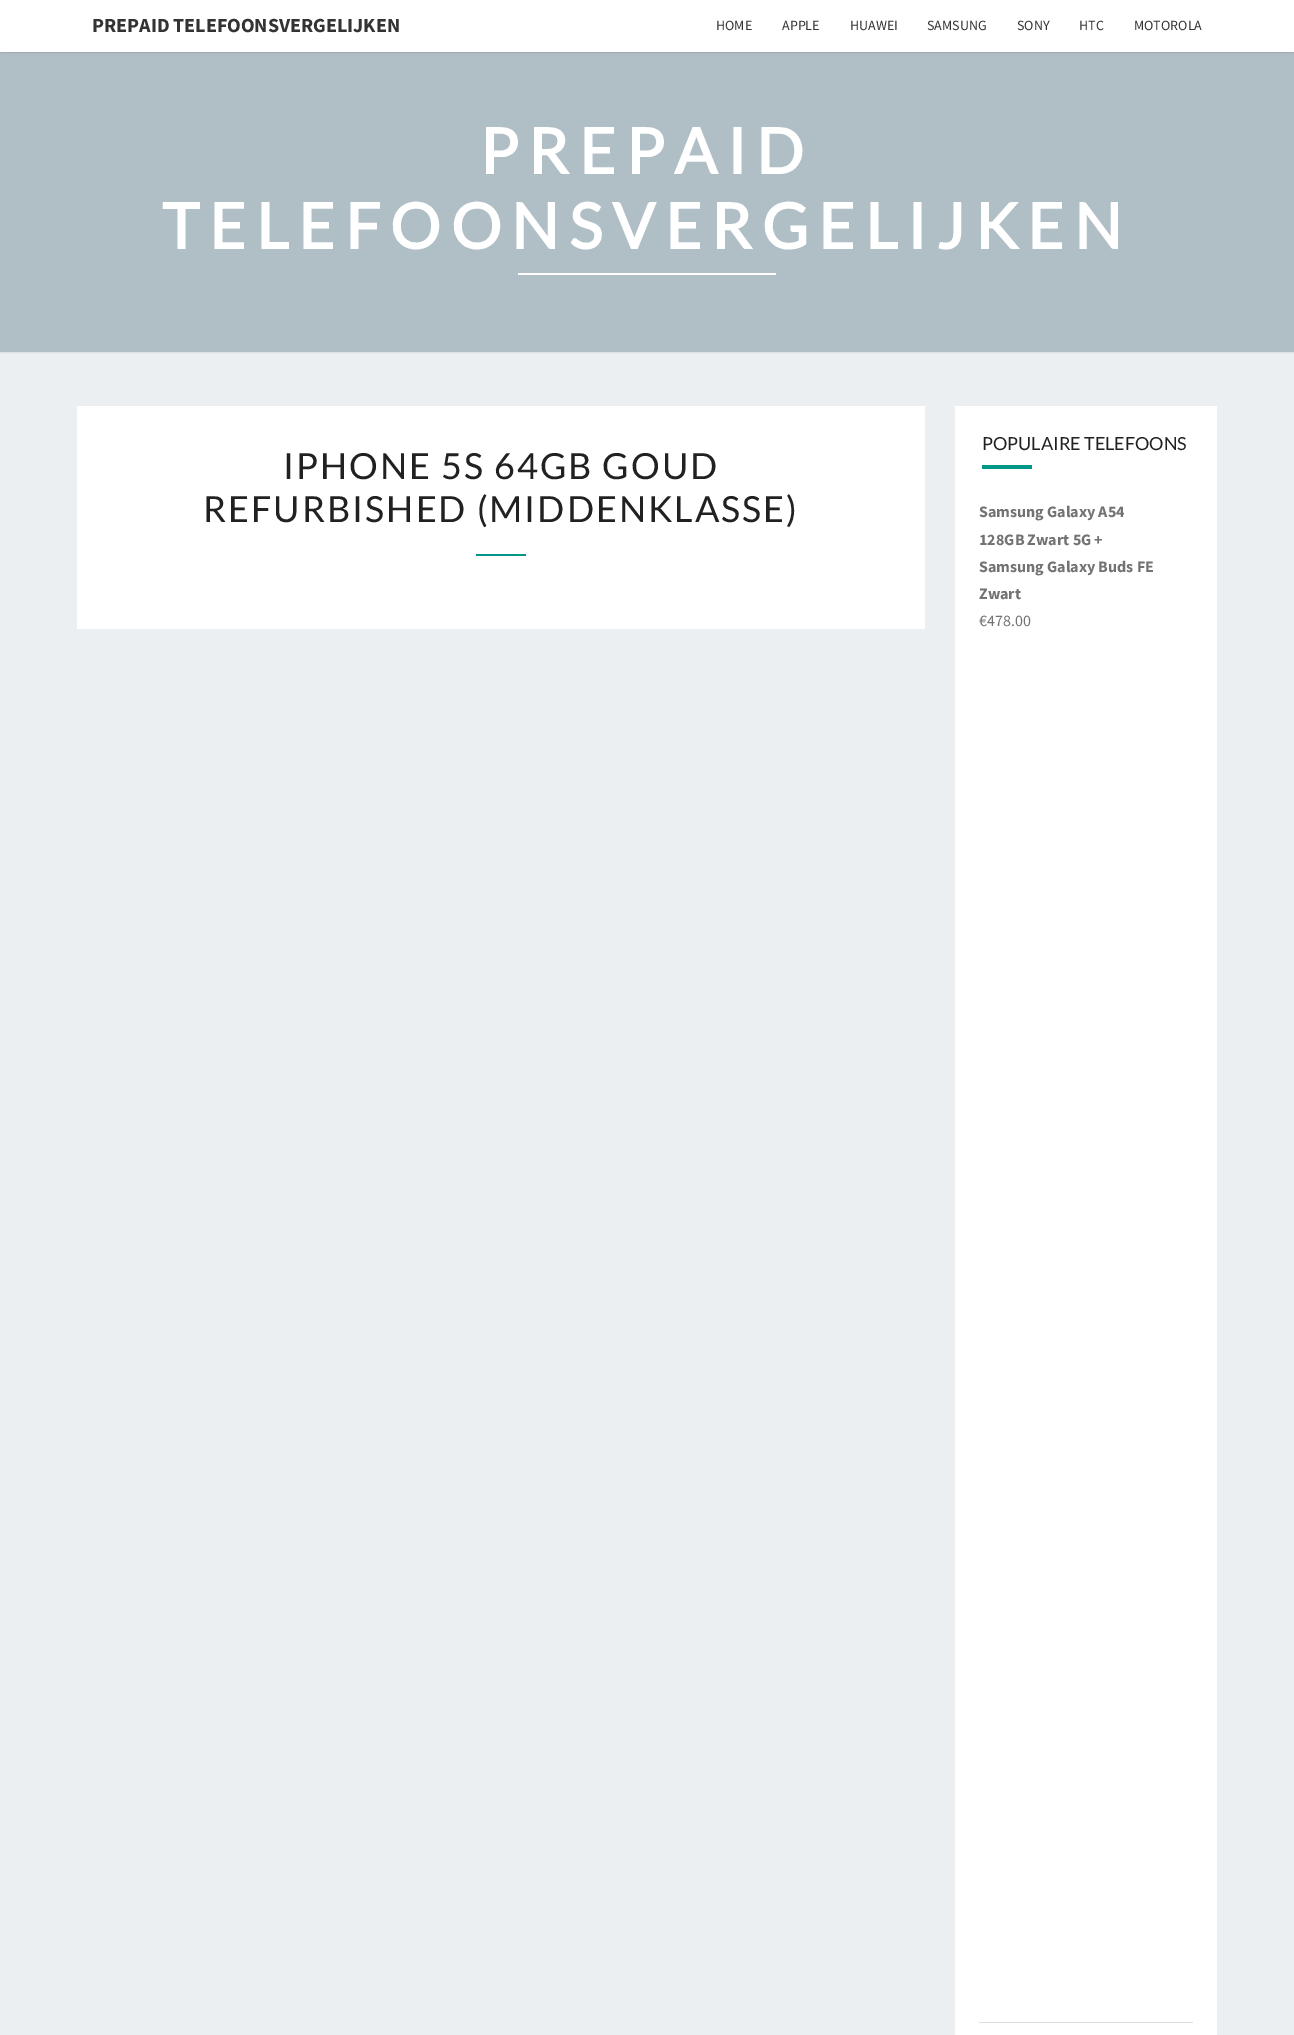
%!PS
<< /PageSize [1294 2035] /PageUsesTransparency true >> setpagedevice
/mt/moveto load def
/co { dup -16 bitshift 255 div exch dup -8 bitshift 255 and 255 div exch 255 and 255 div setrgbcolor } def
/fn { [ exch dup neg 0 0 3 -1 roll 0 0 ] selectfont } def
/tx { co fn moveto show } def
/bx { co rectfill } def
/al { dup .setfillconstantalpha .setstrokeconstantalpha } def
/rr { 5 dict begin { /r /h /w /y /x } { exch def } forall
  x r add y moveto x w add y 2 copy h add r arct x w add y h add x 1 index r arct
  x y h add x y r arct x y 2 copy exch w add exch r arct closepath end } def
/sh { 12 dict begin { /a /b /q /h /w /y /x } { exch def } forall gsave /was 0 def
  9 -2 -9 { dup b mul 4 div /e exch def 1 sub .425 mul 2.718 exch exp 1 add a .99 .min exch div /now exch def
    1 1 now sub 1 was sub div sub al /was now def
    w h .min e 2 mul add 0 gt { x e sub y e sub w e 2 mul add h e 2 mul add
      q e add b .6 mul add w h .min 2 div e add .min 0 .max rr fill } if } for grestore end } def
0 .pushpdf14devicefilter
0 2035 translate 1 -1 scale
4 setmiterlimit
0 0 1294 2035 16#ECEFF1 bx
16#B6B6B6 co
-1 51 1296 302 0 .5 .3 sh
0 52 1294 300 16#B0BEC5 bx
16#646464 co
0 1 1294 52 0 .5 .2 sh
0 0 1294 52 16#FFFFFF bx
518 273 258 2 16#FFFFFF bx
77 406 848 223 16#FFFFFF bx
476 554 50 2 16#009688 bx
955 406 262 1629 16#FFFFFF bx
982 465 50 4 16#009688 bx
979 2022 214 1 16#DDDDDD bx
(PREPAID TELEFOONSVERGELIJKEN) 92 32 /SourceSansPro-Bold 20 16#333333 tx
(HOME) 716 30 /SourceSansPro-Regular 14 16#333333 tx
(APPLE) 782 30 /SourceSansPro-Regular 14 16#333333 tx
(HUAWEI) 850 30 /SourceSansPro-Regular 14 16#333333 tx
(SAMSUNG) 927 30 /SourceSansPro-Regular 14 16#333333 tx
(SONY) 1017 30 /SourceSansPro-Regular 14 16#333333 tx
(HTC) 1079 30 /SourceSansPro-Regular 14 16#333333 tx
(MOTOROLA) 1134 30 /SourceSansPro-Regular 14 16#333333 tx
/Lato-Bold 63 fn
16#FFFFFF co
480 174 mt 10 0 (PREPAID) ashow
162 249 mt 10 0 (TELEFOONSVERGELIJKEN) ashow
/Lato-Regular 36 fn
16#212121 co
283 479 mt 2 0 (IPHONE 5S 64GB GOUD) ashow
203 522 mt 2 0 (REFURBISHED \(MIDDENKLASSE\)) ashow
(POPULAIRE TELEFOONS) 982 450 /Lato-Regular 18 16#212121 tx
(Samsung Galaxy A54) 979 517 /SourceSansPro-Bold 16 16#727272 tx
(128GB Zwart 5G +) 979 545 /SourceSansPro-Bold 16 16#727272 tx
(Samsung Galaxy Buds FE) 979 572 /SourceSansPro-Bold 16 16#727272 tx
(Zwart) 979 599 /SourceSansPro-Bold 16 16#727272 tx
(€478.00) 979 626 /SourceSansPro-Regular 16 16#727272 tx
.poppdf14devicefilter showpage
